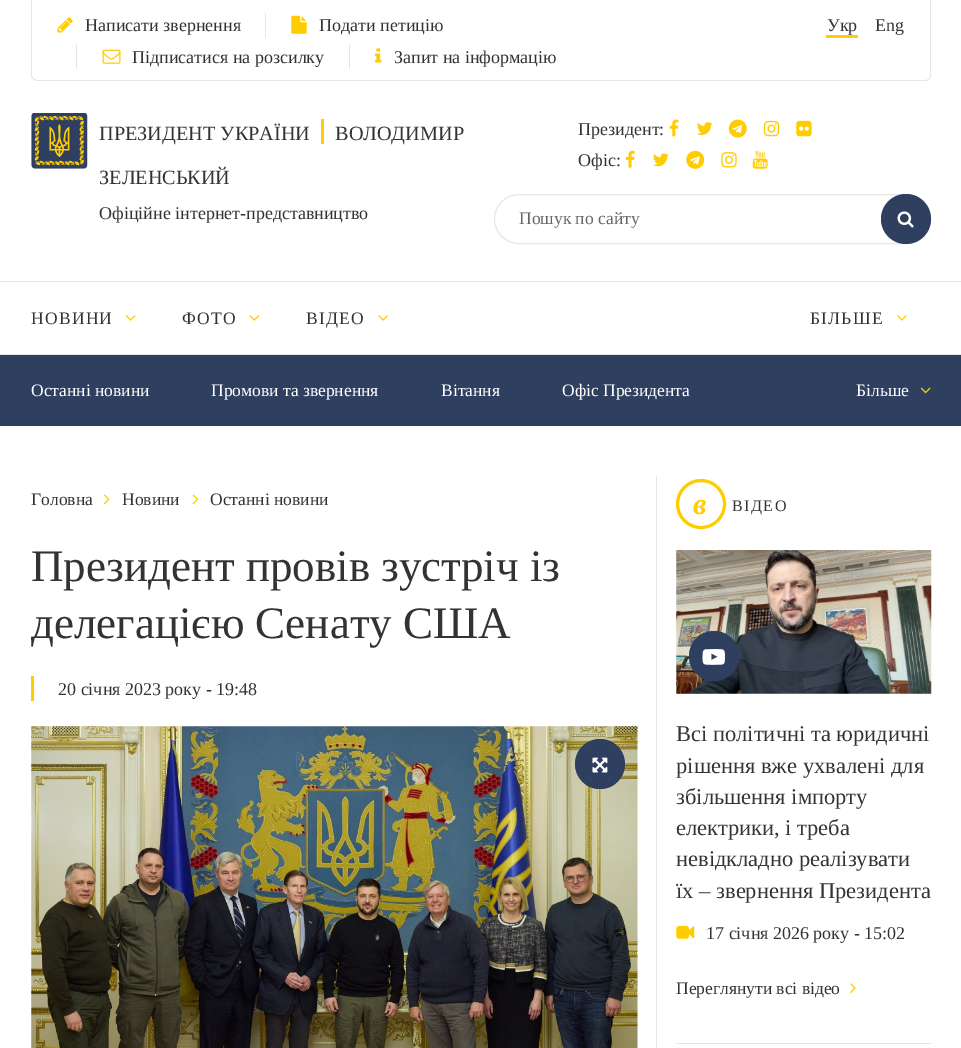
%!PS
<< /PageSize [961 1048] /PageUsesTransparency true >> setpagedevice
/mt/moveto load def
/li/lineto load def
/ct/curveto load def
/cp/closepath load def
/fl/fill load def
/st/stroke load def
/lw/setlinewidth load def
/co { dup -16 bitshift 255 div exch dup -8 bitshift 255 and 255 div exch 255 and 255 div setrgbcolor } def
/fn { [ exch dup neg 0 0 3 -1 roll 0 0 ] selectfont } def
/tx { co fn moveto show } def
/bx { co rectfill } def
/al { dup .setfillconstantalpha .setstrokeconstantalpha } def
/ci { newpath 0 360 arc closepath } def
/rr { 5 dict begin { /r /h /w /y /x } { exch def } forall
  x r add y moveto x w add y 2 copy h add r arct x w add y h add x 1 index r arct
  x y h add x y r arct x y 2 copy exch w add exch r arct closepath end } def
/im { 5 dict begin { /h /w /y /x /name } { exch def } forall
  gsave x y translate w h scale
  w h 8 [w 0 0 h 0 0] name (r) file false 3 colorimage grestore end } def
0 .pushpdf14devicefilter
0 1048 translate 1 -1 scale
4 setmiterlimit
0 0 961 1048 16#FFFFFF bx
16#E6E6E6 co
31 0 mt 931 0 li 931 75 li 931 78 928 81 925 81 ct 38 81 li 34 81 31 78 31 75 ct cp 32 0 mt 930 0 li 930 75 li 930 78 928 80 925 80 ct 38 80 li 35 80 32 78 32 75 ct cp eofill
(media/1.raw) 57 17 16 16 im
265 13 1 25 16#E6E6E6 bx
(media/2.raw) 291 15 16 19 im
76 44 1 25 16#E6E6E6 bx
(media/3.raw) 102 49 19 15 im
349 44 1 25 16#E6E6E6 bx
(media/4.raw) 375 48 7 15 im
826 35 32 3 16#FFCC00 bx
(media/5.raw) 31 113 57 56 im
321 119 3 25 16#FFCC00 bx
(media/6.raw) 669 119 10 18 im
(media/7.raw) 696 122 17 13 im
(media/8.raw) 728 119 19 19 im
(media/9.raw) 763 120 17 17 im
(media/10.raw) 796 120 16 17 im
(media/11.raw) 625 150 10 18 im
(media/12.raw) 653 153 16 14 im
(media/13.raw) 686 150 19 19 im
(media/14.raw) 721 152 16 16 im
(media/15.raw) 752 150 16 19 im
16#E6E6E6 co
494.5 194.5 436 49 24.5 rr st
16#2F3F60 co
906 219 25 ci fl
(media/16.raw) 897 211 17 17 im
0 281 961 1 16#E6E6E6 bx
0 354 961 1 16#E5E5E5 bx
(media/17.raw) 125 315 11 6 im
(media/18.raw) 249 315 11 6 im
(media/19.raw) 378 315 10 6 im
(media/20.raw) 897 315 10 6 im
0 355 961 71 16#2F3F60 bx
(media/21.raw) 920 387 11 7 im
(media/22.raw) 103 494 7 11 im
(media/23.raw) 192 494 7 11 im
31 676 3 25 16#FFCC00 bx
31 939 607 1 16#D6D6D6 bx
(media/24.raw) 31 726 607 322 im
16#2F3F60 co
600 764 25 ci fl
0.2 al
16#333333 co
596 789 mt 591.5 788 587.5 786.5 584.5 784 ct 586 783 li 594 789.5 606 789.5 614 783 ct 615.5 784 li 609 789 603.5 789 596 789 ct cp fl
1 al
(media/25.raw) 592 757 16 16 im
656 476 1 572 16#E6E6E6 bx
16#FFCC00 co
3 lw
701 504 23.5 ci st
(media/26.raw) 676 550 256 144 im
16#2F3F60 co
714 656 25 ci fl
(media/27.raw) 702 649 23 16 im
(media/28.raw) 676 925 19 14 im
(media/29.raw) 850 983 6 10 im
676 1043 255 1 16#E6E6E6 bx
(Написати звернення) 85 31 /LiberationSerif-Regular 18 16#333333 tx
(Подати петицію) 319 31 /LiberationSerif-Regular 18 16#333333 tx
(Підписатися на розсилку) 132 63 /LiberationSerif-Regular 18 16#333333 tx
(Запит на інформацію) 394 63 /LiberationSerif-Regular 18 16#333333 tx
(Укр) 827 31 /LiberationSerif-Regular 18 16#333333 tx
(Eng) 875 31 /LiberationSerif-Regular 18 16#333333 tx
(ПРЕЗИДЕНТ УКРАЇНИ) 99 140 /LiberationSerif-Regular 20.25 16#333333 tx
(ВОЛОДИМИР) 335 140 /LiberationSerif-Regular 20.25 16#333333 tx
(ЗЕЛЕНСЬКИЙ) 99 184 /LiberationSerif-Regular 20.25 16#333333 tx
(Офіційне інтернет-представництво) 99 219 /LiberationSerif-Regular 18 16#333333 tx
(Президент:) 578 135 /LiberationSerif-Regular 18 16#333333 tx
(Офіс:) 578 166 /LiberationSerif-Regular 18 16#333333 tx
(Пошук по сайту) 519 224 /LiberationSerif-Regular 17.5 16#666666 tx
16#333333 co
31 324 mt 1.25 0 (НОВИНИ) ashow
182 324 mt 1.25 0 (ФОТО) ashow
306 324 mt 1.25 0 (ВІДЕО) ashow
810 324 mt 1.25 0 (БІЛЬШЕ) ashow
(Останні новини) 31 396 /LiberationSerif-Regular 17.5 16#FFFFFF tx
(Промови та звернення) 211 396 /LiberationSerif-Regular 17.5 16#FFFFFF tx
(Вiтання) 441 396 /LiberationSerif-Regular 17.5 16#FFFFFF tx
(Офіс Президента) 562 396 /LiberationSerif-Regular 17.5 16#FFFFFF tx
(Більше) 856 396 /LiberationSerif-Regular 17.5 16#FFFFFF tx
(Головна) 31 505 /LiberationSerif-Regular 17.5 16#333333 tx
(Новини) 122 505 /LiberationSerif-Regular 17.5 16#333333 tx
(Останні новини) 210 505 /LiberationSerif-Regular 17.5 16#333333 tx
(Президент провів зустріч із) 31 581 /LiberationSerif-Regular 45 16#333333 tx
(делегацією Сенату США) 31 638 /LiberationSerif-Regular 45 16#333333 tx
(20 січня 2023 року - 19:48) 58 695 /LiberationSerif-Regular 18 16#333333 tx
/LiberationSerif-BoldItalic 30 fn
16#FFCC00 co
693 514 mt 1.5 0 (в) ashow
/LiberationSerif-Regular 16 fn
16#333333 co
732 511 mt 1.5 0 (ВІДЕО) ashow
(Всі політичні та юридичні) 676 741 /LiberationSerif-Regular 22.5 16#333333 tx
(рішення вже ухвалені для) 676 773 /LiberationSerif-Regular 22.5 16#333333 tx
(збільшення імпорту) 676 804 /LiberationSerif-Regular 22.5 16#333333 tx
(електрики, і треба) 676 835 /LiberationSerif-Regular 22.5 16#333333 tx
(невідкладно реалізувати) 676 866 /LiberationSerif-Regular 22.5 16#333333 tx
(їх – звернення Президента) 676 898 /LiberationSerif-Regular 22.5 16#333333 tx
(17 січня 2026 року - 15:02) 706 939 /LiberationSerif-Regular 18 16#333333 tx
(Переглянути всі відео) 676 994 /LiberationSerif-Regular 17.5 16#333333 tx
.poppdf14devicefilter showpage
